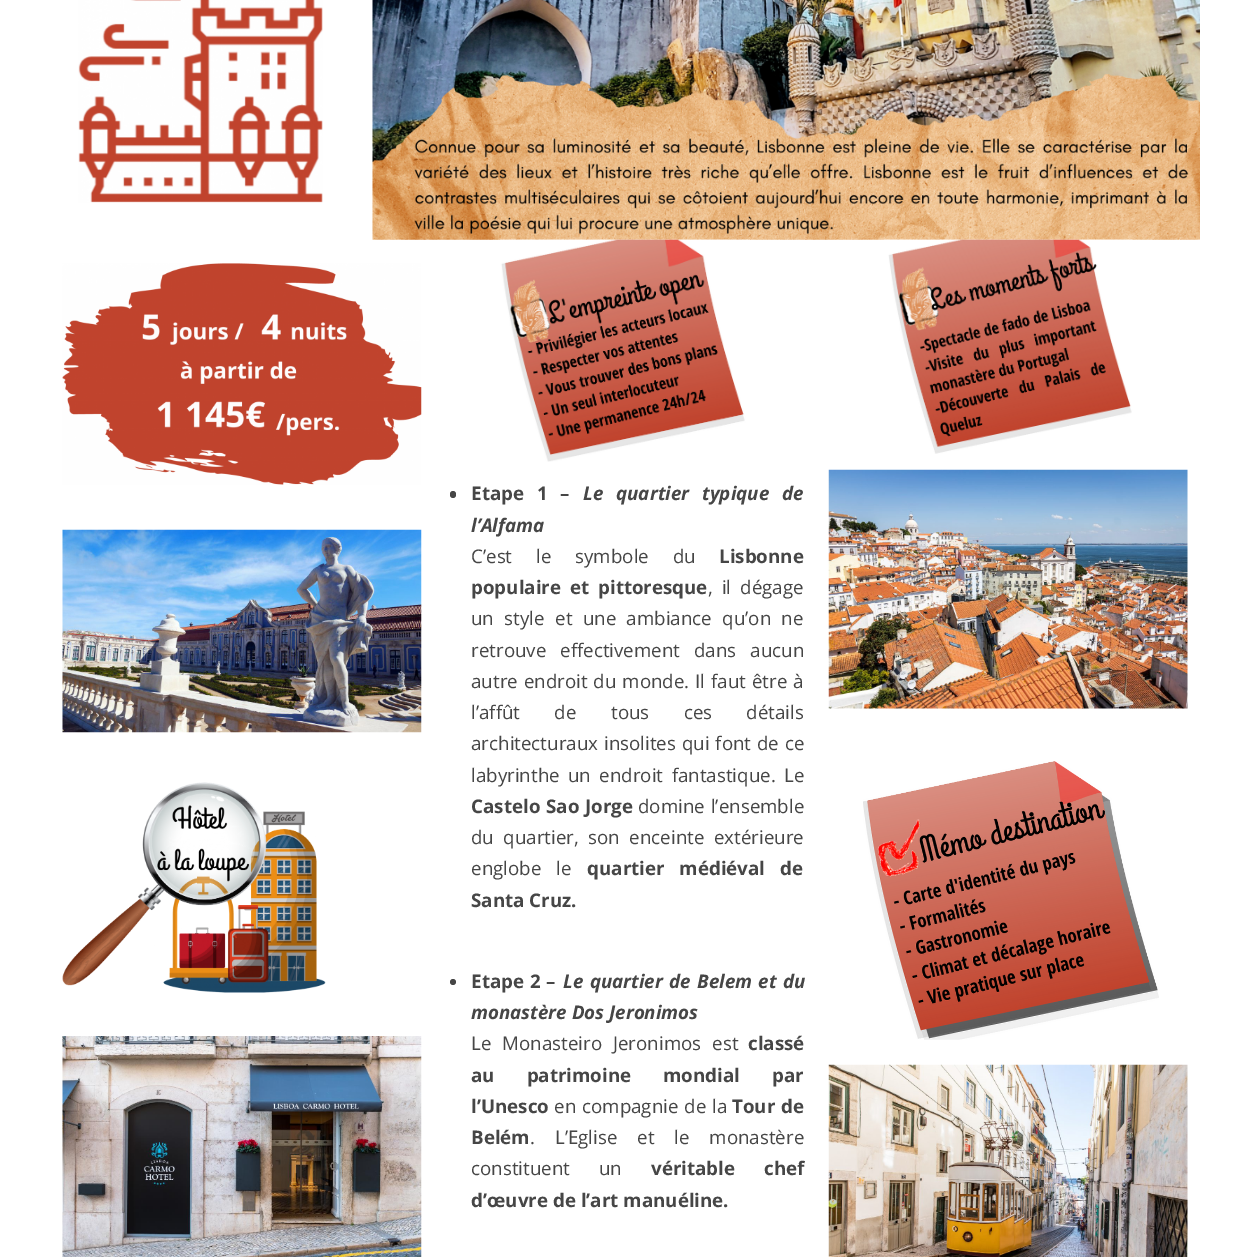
%!PS
<< /PageSize [1249 1257] >> setpagedevice
/mt/moveto load def
/fl/fill load def
/co { dup -16 bitshift 255 div exch dup -8 bitshift 255 and 255 div exch 255 and 255 div setrgbcolor } def
/fn { [ exch dup neg 0 0 3 -1 roll 0 0 ] selectfont } def
/tx { co fn moveto show } def
/bx { co rectfill } def
/ci { newpath 0 360 arc closepath } def
/rr { 5 dict begin { /r /h /w /y /x } { exch def } forall
  x r add y moveto x w add y 2 copy h add r arct x w add y h add x 1 index r arct
  x y h add x y r arct x y 2 copy exch w add exch r arct closepath end } def
/im { 5 dict begin { /h /w /y /x /name } { exch def } forall
  gsave x y translate w h scale
  w h 8 [w 0 0 h 0 0] name (r) file false 3 colorimage grestore end } def
0 1257 translate 1 -1 scale
4 setmiterlimit
0 0 1249 1257 16#FFFFFF bx
(media/1.raw) 78 0 245 203 im
(media/2.raw) 372 0 828 240 im
(media/3.raw) 62 263 360 222 im
(media/4.raw) 62 529 360 204 im
(media/5.raw) 62 782 264 211 im
(media/6.raw) 62 1036 360 221 im
(media/7.raw) 500 239 250 223 im
16#464646 co
450 491 6 7 3 rr fl
453 982 3 ci fl
(media/8.raw) 883 239 250 215 im
(media/9.raw) 828 469 360 240 im
(media/10.raw) 863 761 296 279 im
(media/11.raw) 828 1064 360 193 im
/OpenSans-Bold 18.75 fn
471 500 mt 8 0 32 (Etape 1 –) widthshow
/OpenSans-BoldItalic 18.75 fn
583 500 mt 8 0 32 (Le quartier typique de) widthshow
(l’Alfama) 471 532 /OpenSans-BoldItalic 18.75 16#464646 tx
/OpenSans-Regular 18.75 fn
471 563 mt 19 0 32 (C’est le symbole du) widthshow
(Lisbonne) 719 563 /OpenSans-Bold 18.75 16#464646 tx
471 594 mt 4 0 32 (populaire et pittoresque) widthshow
/OpenSans-Regular 18.75 fn
708 594 mt 4 0 32 (, il dégage) widthshow
471 625 mt 5.5 0 32 (un style et une ambiance qu’on ne) widthshow
471 657 mt 9 0 32 (retrouve effectivement dans aucun) widthshow
471 688 mt 1 0 32 (autre endroit du monde. Il faut être à) widthshow
471 719 mt 29.5 0 32 (l’affût de tous ces détails) widthshow
471 750 mt 1 0 32 (architecturaux insolites qui font de ce) widthshow
471 782 mt 3.5 0 32 (labyrinthe un endroit fantastique. Le) widthshow
/OpenSans-Bold 18.75 fn
471 813 mt 1 0 32 (Castelo Sao Jorge) widthshow
/OpenSans-Regular 18.75 fn
638 813 mt 1 0 32 (domine l’ensemble) widthshow
471 844 mt 4.5 0 32 (du quartier, son enceinte extérieure) widthshow
471 875 mt 10 0 32 (englobe le) widthshow
/OpenSans-Bold 18.75 fn
587 875 mt 10 0 32 (quartier médiéval de) widthshow
(Santa Cruz.) 471 907 /OpenSans-Bold 18.75 16#464646 tx
471 988 mt 1 0 32 (Etape 2 –) widthshow
/OpenSans-BoldItalic 18.75 fn
563 988 mt 1.5 0 32 (Le quartier de Belem et du) widthshow
(monastère Dos Jeronimos) 471 1019 /OpenSans-BoldItalic 18.75 16#464646 tx
/OpenSans-Regular 18.75 fn
471 1050 mt 6 0 32 (Le Monasteiro Jeronimos est) widthshow
(classé) 748 1050 /OpenSans-Bold 18.75 16#464646 tx
471 1082 mt 27 0 32 (au patrimoine mondial par) widthshow
(l’Unesco) 471 1113 /OpenSans-Bold 18.75 16#464646 tx
/OpenSans-Regular 18.75 fn
554 1113 mt 1 0 32 (en compagnie de la) widthshow
/OpenSans-Bold 18.75 fn
732 1113 mt 1 0 32 (Tour de) widthshow
(Belém) 471 1144 /OpenSans-Bold 18.75 16#464646 tx
/OpenSans-Regular 18.75 fn
530 1144 mt 15 0 32 (. L’Eglise et le monastère) widthshow
471 1175 mt 24 0 32 (constituent un) widthshow
/OpenSans-Bold 18.75 fn
651 1175 mt 24 0 32 (véritable chef) widthshow
(d’œuvre de l’art manuéline.) 471 1207 /OpenSans-Bold 18.75 16#464646 tx
showpage
